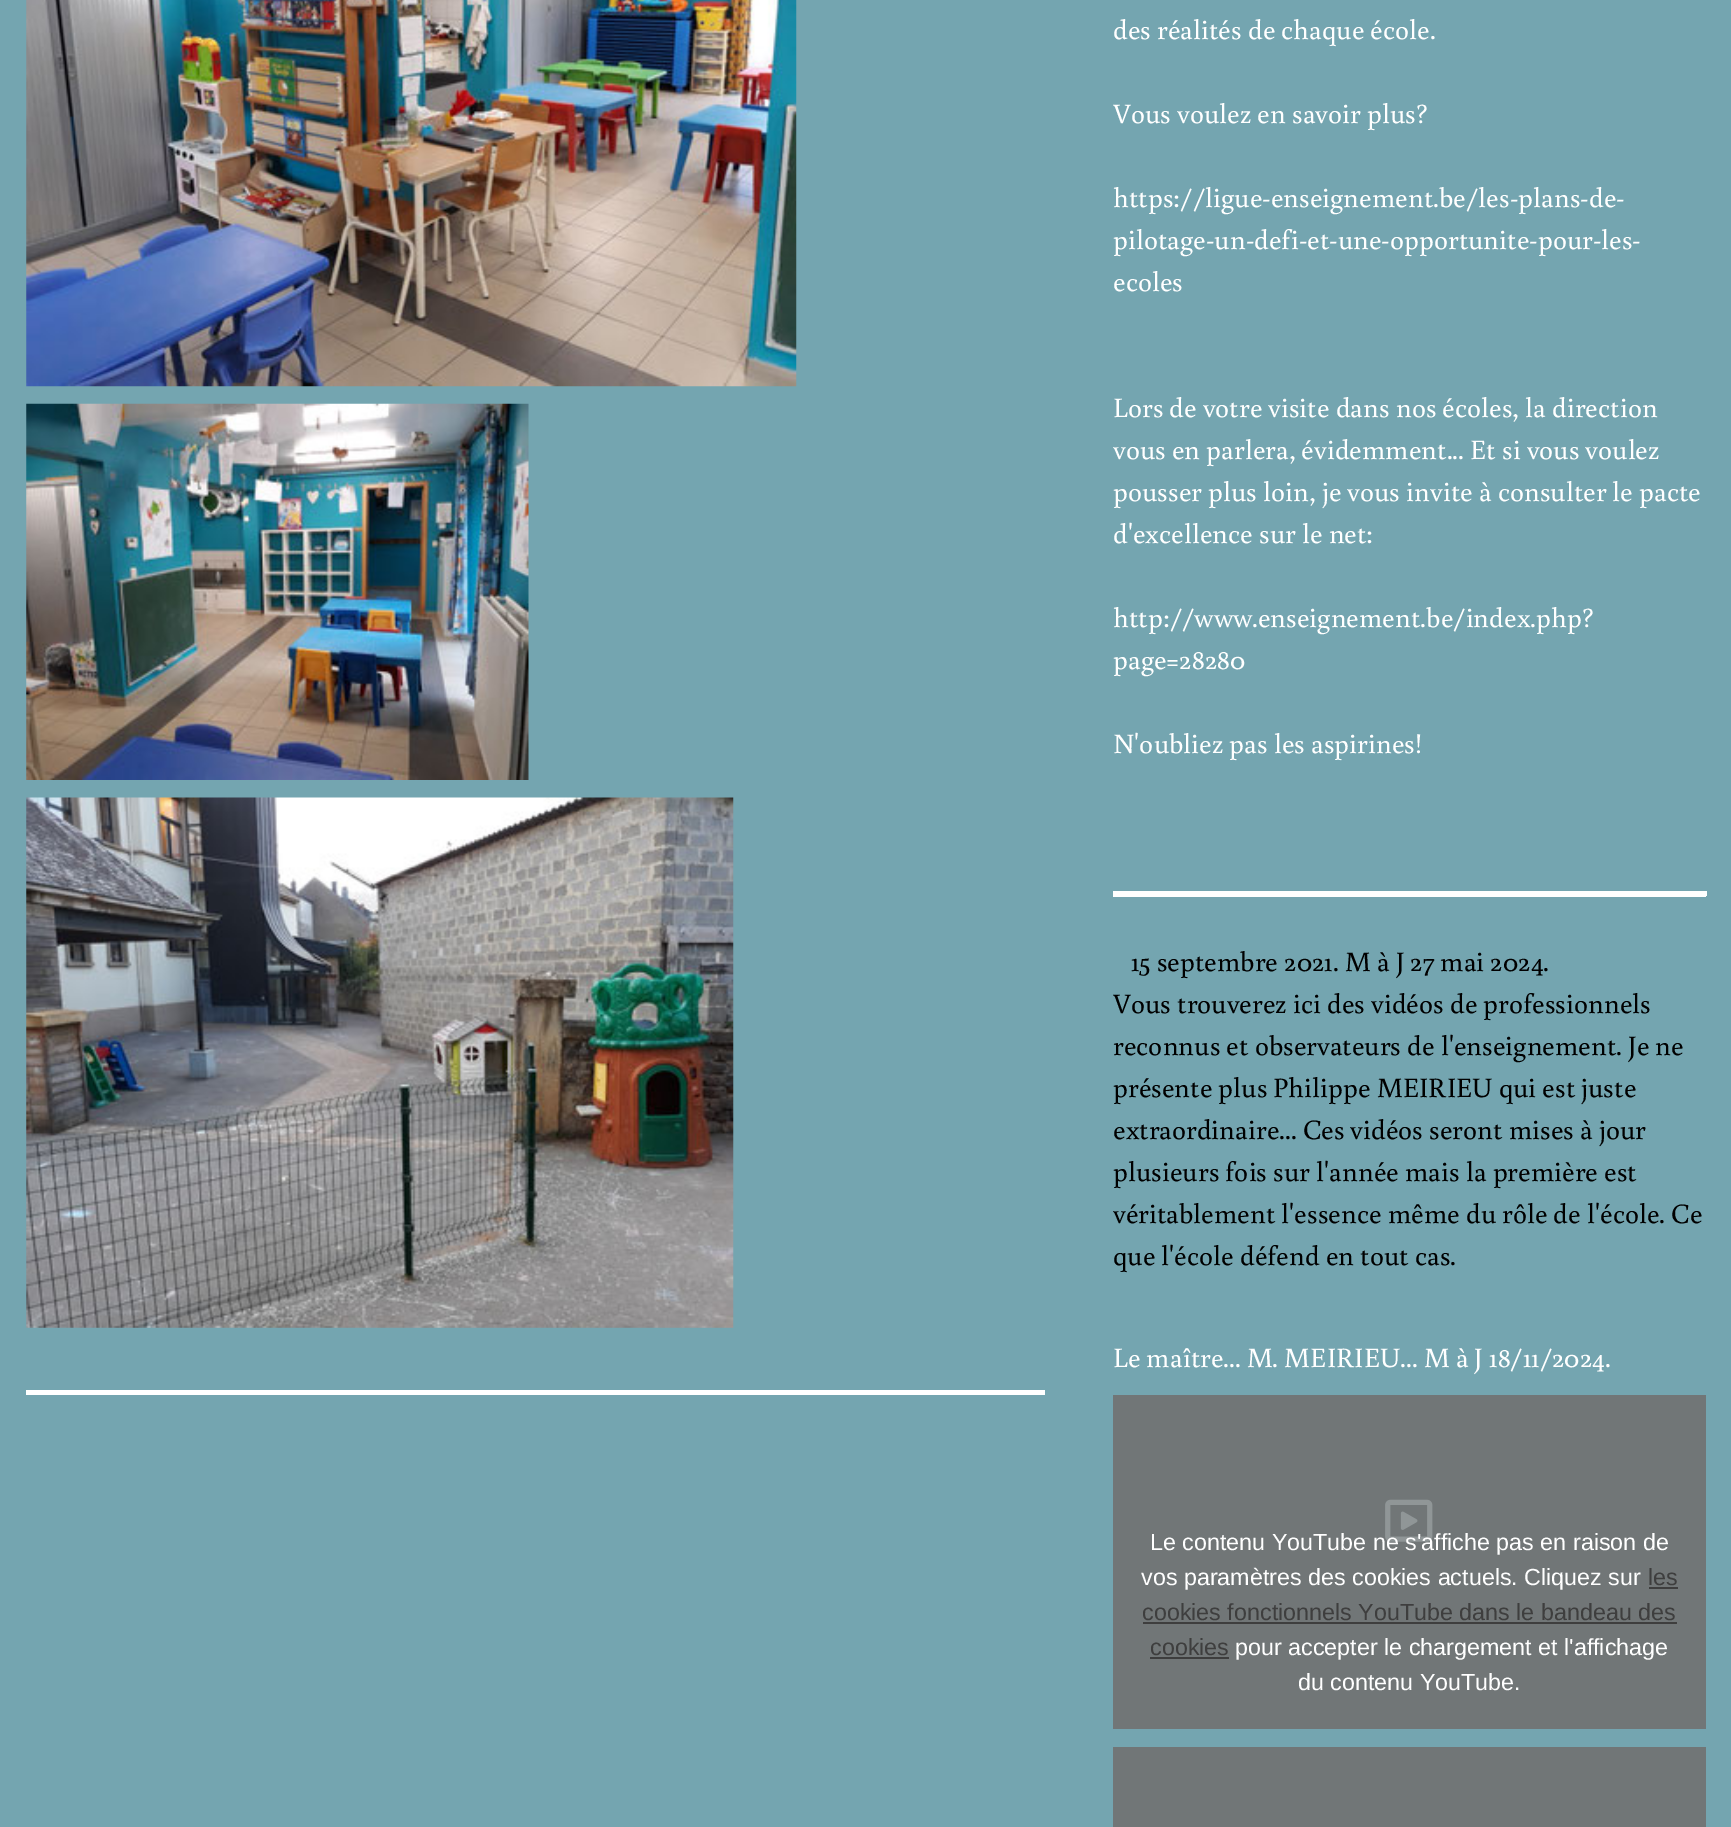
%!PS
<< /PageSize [1731 1827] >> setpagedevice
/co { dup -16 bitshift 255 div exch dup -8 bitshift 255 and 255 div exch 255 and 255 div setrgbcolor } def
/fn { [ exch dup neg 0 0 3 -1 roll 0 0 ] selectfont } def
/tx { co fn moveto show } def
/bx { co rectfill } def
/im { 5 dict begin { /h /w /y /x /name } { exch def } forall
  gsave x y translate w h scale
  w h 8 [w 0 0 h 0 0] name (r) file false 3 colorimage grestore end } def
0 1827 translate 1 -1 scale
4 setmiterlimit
0 0 1731 1827 16#74A5B0 bx
(media/1.raw) 26 0 771 387 im
(media/2.raw) 26 403 503 377 im
(media/3.raw) 26 797 708 531 im
26 1390 1019 1 16#FFFFFF bx
1043 1390 2 5 16#FFFFFF bx
26 1391 1019 4 16#FFFFFF bx
1113 891 593 2 16#FFFFFF bx
1705 891 2 5 16#FFFFFF bx
1113 893 593 4 16#FFFFFF bx
1113 1395 593 334 16#717677 bx
(media/4.raw) 1385 1499 48 43 im
1649 1587 29 2 16#3E3E3E bx
1143 1622 534 2 16#3E3E3E bx
1150 1657 79 2 16#3E3E3E bx
1113 1747 593 80 16#717677 bx
(des réalités de chaque école.) 1113 39 /Buenard-Regular 28 16#FFFFFF tx
(Vous voulez en savoir plus?) 1113 123 /Buenard-Regular 28 16#FFFFFF tx
(https://ligue-enseignement.be/les-plans-de-) 1113 207 /Buenard-Regular 28 16#FFFFFF tx
(pilotage-un-defi-et-une-opportunite-pour-les-) 1113 249 /Buenard-Regular 28 16#FFFFFF tx
(ecoles) 1113 291 /Buenard-Regular 28 16#FFFFFF tx
(Lors de votre visite dans nos écoles, la direction) 1113 417 /Buenard-Regular 28 16#FFFFFF tx
(vous en parlera, évidemment... Et si vous voulez) 1113 459 /Buenard-Regular 28 16#FFFFFF tx
(pousser plus loin, je vous invite à consulter le pacte) 1113 501 /Buenard-Regular 28 16#FFFFFF tx
(d'excellence sur le net:) 1113 543 /Buenard-Regular 28 16#FFFFFF tx
(http://www.enseignement.be/index.php?) 1113 627 /Buenard-Regular 28 16#FFFFFF tx
(page=28280) 1113 669 /Buenard-Regular 28 16#FFFFFF tx
(N'oubliez pas les aspirines!) 1113 753 /Buenard-Regular 28 16#FFFFFF tx
(15 septembre 2021. M à J 27 mai 2024.) 1131 971 /Buenard-Regular 28 16#000000 tx
(Vous trouverez ici des vidéos de professionnels) 1113 1013 /Buenard-Regular 28 16#000000 tx
(reconnus et observateurs de l'enseignement. Je ne) 1113 1055 /Buenard-Regular 28 16#000000 tx
(présente plus Philippe MEIRIEU qui est juste) 1113 1097 /Buenard-Regular 28 16#000000 tx
(extraordinaire... Ces vidéos seront mises à jour) 1113 1139 /Buenard-Regular 28 16#000000 tx
(plusieurs fois sur l'année mais la première est) 1113 1181 /Buenard-Regular 28 16#000000 tx
(véritablement l'essence même du rôle de l'école. Ce) 1113 1223 /Buenard-Regular 28 16#000000 tx
(que l'école défend en tout cas.) 1113 1265 /Buenard-Regular 28 16#000000 tx
(Le maître... M. MEIRIEU... M à J 18/11/2024.) 1113 1367 /Buenard-Regular 28 16#FFFFFF tx
(Le contenu YouTube ne s'affiche pas en raison de) 1150 1550 /LiberationSans-Regular 23.3 16#FFFFFF tx
(vos paramètres des cookies actuels. Cliquez sur) 1141 1585 /LiberationSans-Regular 23.3 16#FFFFFF tx
(les) 1648 1585 /LiberationSans-Regular 23.3 16#3E3E3E tx
(cookies fonctionnels YouTube dans le bandeau des) 1142 1620 /LiberationSans-Regular 23.3 16#3E3E3E tx
(cookies) 1150 1655 /LiberationSans-Regular 23.3 16#3E3E3E tx
(pour accepter le chargement et l'affichage) 1235 1655 /LiberationSans-Regular 23.3 16#FFFFFF tx
(du contenu YouTube.) 1298 1690 /LiberationSans-Regular 23.3 16#FFFFFF tx
showpage
